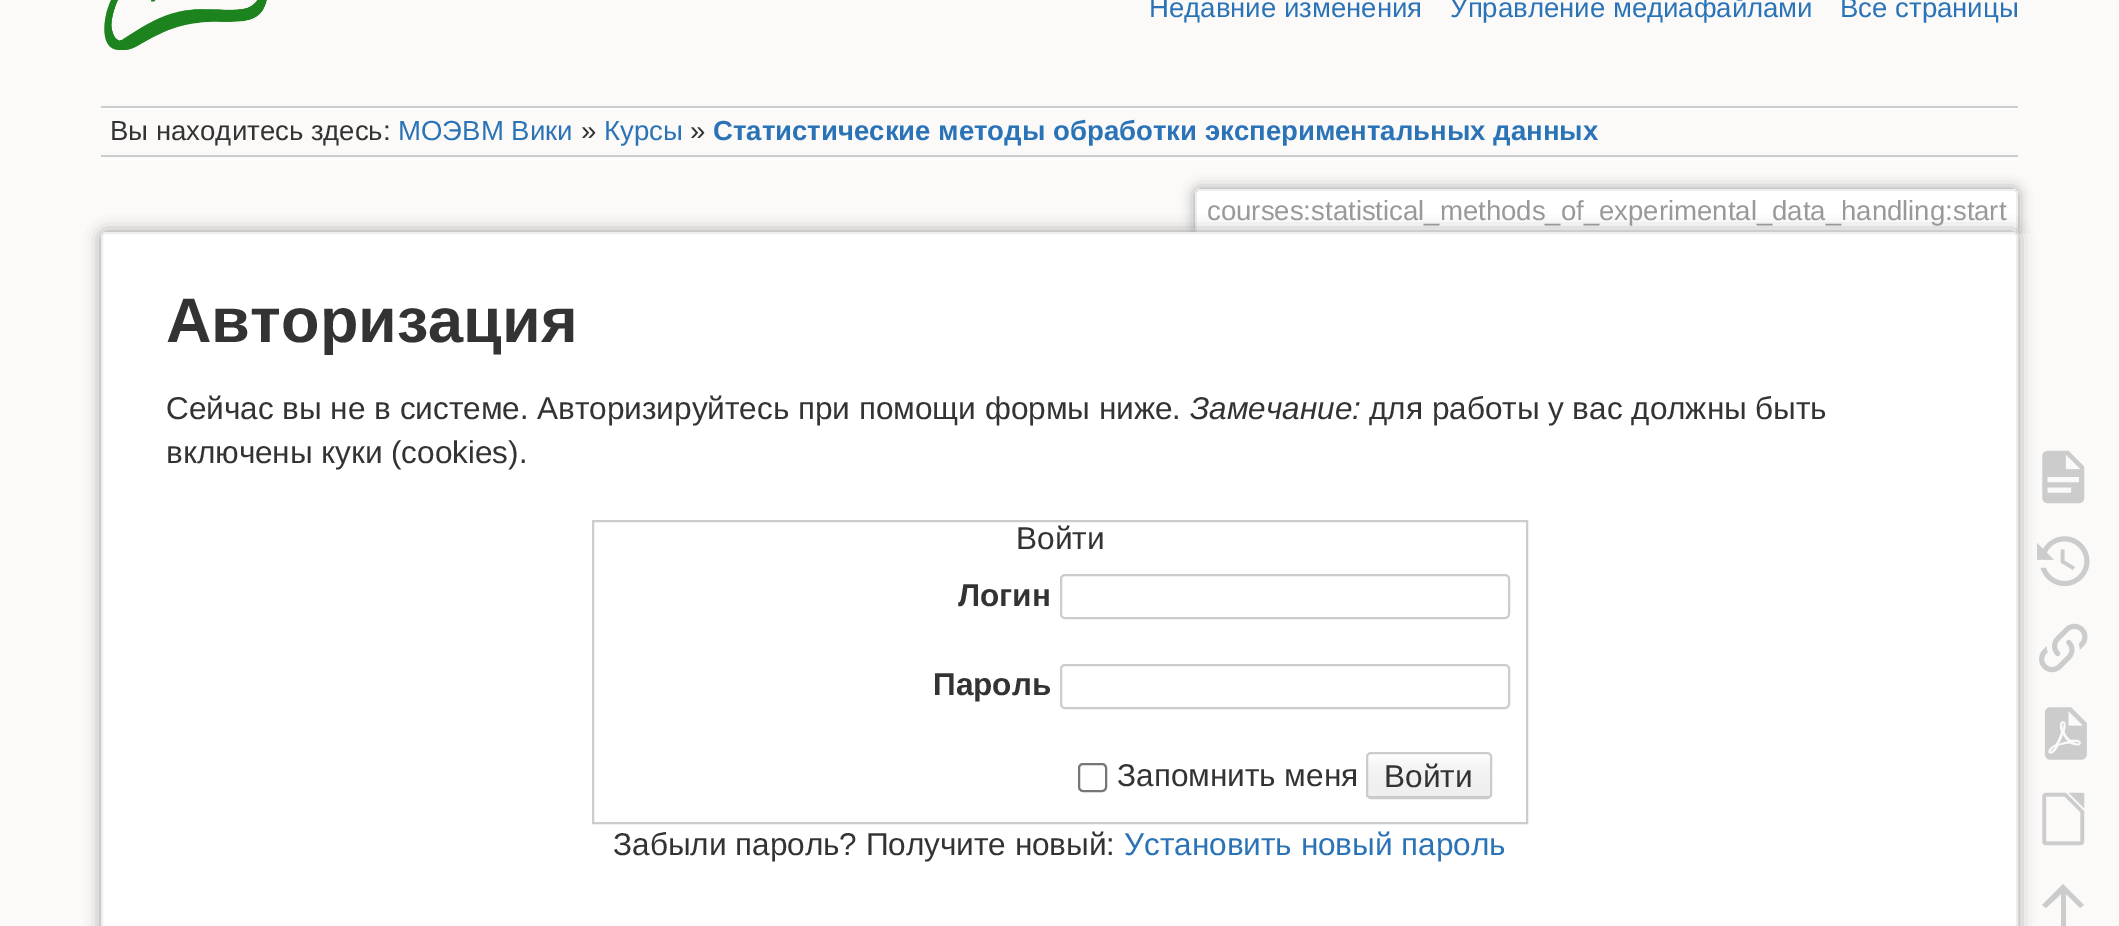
%!PS
<< /PageSize [2119 926] /PageUsesTransparency true >> setpagedevice
/mt/moveto load def
/li/lineto load def
/ct/curveto load def
/cp/closepath load def
/fl/fill load def
/st/stroke load def
/gs/gsave load def
/gr/grestore load def
/lw/setlinewidth load def
/co { dup -16 bitshift 255 div exch dup -8 bitshift 255 and 255 div exch 255 and 255 div setrgbcolor } def
/fn { [ exch dup neg 0 0 3 -1 roll 0 0 ] selectfont } def
/tx { co fn moveto show } def
/bx { co rectfill } def
/al { dup .setfillconstantalpha .setstrokeconstantalpha } def
/rr { 5 dict begin { /r /h /w /y /x } { exch def } forall
  x r add y moveto x w add y 2 copy h add r arct x w add y h add x 1 index r arct
  x y h add x y r arct x y 2 copy exch w add exch r arct closepath end } def
/sh { 12 dict begin { /a /b /q /h /w /y /x } { exch def } forall gsave /was 0 def
  9 -2 -9 { dup b mul 4 div /e exch def 1 sub .425 mul 2.718 exch exp 1 add a .99 .min exch div /now exch def
    1 1 now sub 1 was sub div sub al /was now def
    w h .min e 2 mul add 0 gt { x e sub y e sub w e 2 mul add h e 2 mul add
      q e add b .6 mul add w h .min 2 div e add .min 0 .max rr fill } if } for grestore end } def
/im { 5 dict begin { /h /w /y /x /name } { exch def } forall
  gsave x y translate w h scale
  w h 8 [w 0 0 h 0 0] name (r) file false 3 colorimage grestore end } def
0 .pushpdf14devicefilter
0 926 translate 1 -1 scale
4 setmiterlimit
0 0 2119 926 16#FBFAF9 bx
(media/1.raw) 104 0 163 50 im
101 106 1917 2 16#CCCCCC bx
101 158 1917 2 16#FFFFFF bx
101 108 1917 2 16#FFFFFF bx
101 155 1917 2 16#CCCCCC bx
gs
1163 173 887 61 rectclip
16#999999 co
1195 189 823 45 5 7 1 sh
gr
16#FFFFFF co
1199 191 mt 2014 191 li 2015 191 2016 192 2016 193 ct 2016 234 li 1197 234 li 1197 193 li 1197 192 1198 191 1199 191 ct cp fl
1197 189 819 2 16#EEEEEE bx
2016 191 2 43 16#EEEEEE bx
1195 191 2 43 16#EEEEEE bx
16#999999 co
101 232 1917 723 5 8 1 sh
16#FFFFFF co
102 233 1915 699 4 rr gs fl gr
16#EEEEEE co
2 lw
st
16#CCCCCC co
593 521 934 302 rectstroke
1061 575 448 43 4 rr st
1061 665 448 43 4 rr st
16#767676 co
1079 764 27 27 4 rr st
gs
1366 752 126 47 5 rr clip newpath
gs 1366 754 mt 1492 754 li 1492 797 li 1366 797 li cp clip newpath
<< /ShadingType 2 /ColorSpace /DeviceRGB /Coords [1429 754 1429 797] /Extend [true true] /Function << /FunctionType 3 /Domain [0 1] /Functions [<< /FunctionType 2 /Domain [0 1] /C0 [1 1 1] /C1 [.957 .957 .957] /N 1 >> << /FunctionType 2 /Domain [0 1] /C0 [.957 .957 .957] /C1 [.933 .933 .933] /N 1 >> << /FunctionType 2 /Domain [0 1] /C0 [.8 .8 .8] /C1 [.8 .8 .8] /N 1 >>] /Bounds [.3 .99] /Encode [0 1 0 1 0 1] >> >> shfill gr
gr
16#CCCCCC co
1367 753 124 45 4 rr st
(media/2.raw) 2042 450 43 54 im
(media/3.raw) 2037 536 53 51 im
(media/4.raw) 2039 623 49 50 im
(media/5.raw) 2044 707 43 53 im
(media/6.raw) 2042 792 43 54 im
2066 926 mt 2061 926 li 2061 894 li 2046 908 li 2042 905 li 2063 884 li 2084 905 li 2080 908 li 2066 894 li cp fl
(Недавние изменения) 1149 17 /LiberationSans-Regular 27.55 16#2B73B7 tx
(Управление медиафайлами) 1450 17 /LiberationSans-Regular 27.55 16#2B73B7 tx
(Все страницы) 1840 17 /LiberationSans-Regular 27.55 16#2B73B7 tx
(Вы находитесь здесь:) 110 140 /LiberationSans-Regular 27.55 16#333333 tx
(МОЭВМ Вики) 398 140 /LiberationSans-Regular 27.55 16#2B73B7 tx
(») 581 140 /LiberationSans-Regular 27.55 16#333333 tx
(Курсы) 604 140 /LiberationSans-Regular 27.55 16#2B73B7 tx
(») 690 140 /LiberationSans-Regular 27.55 16#333333 tx
(Статистические методы обработки экспериментальных данных) 713 140 /LiberationSans-Bold 27.55 16#2B73B7 tx
(courses:statistical_methods_of_experimental_data_handling:start) 1207 220 /LiberationSans-Regular 27.55 16#999999 tx
(Авторизация) 166 342 /LiberationSans-Bold 63 16#333333 tx
(Сейчас вы не в системе. Авторизируйтесь при помощи формы ниже.) 166 419 /LiberationSans-Regular 31.5 16#333333 tx
(Замечание:) 1190 419 /LiberationSans-Italic 31.5 16#333333 tx
(для работы у вас должны быть) 1369 419 /LiberationSans-Regular 31.5 16#333333 tx
(включены куки \(cookies\).) 166 463 /LiberationSans-Regular 31.5 16#333333 tx
(Войти) 1016 549 /LiberationSans-Regular 31.5 16#333333 tx
(Логин) 958 606 /LiberationSans-Bold 31.5 16#333333 tx
(Пароль) 933 695 /LiberationSans-Bold 31.5 16#333333 tx
(Запомнить меня) 1117 786 /LiberationSans-Regular 31.5 16#333333 tx
(Войти) 1384 787 /LiberationSans-Regular 31.5 16#333333 tx
(Забыли пароль? Получите новый:) 613 855 /LiberationSans-Regular 31.5 16#333333 tx
(Установить новый пароль) 1124 855 /LiberationSans-Regular 31.5 16#2B73B7 tx
.poppdf14devicefilter showpage
